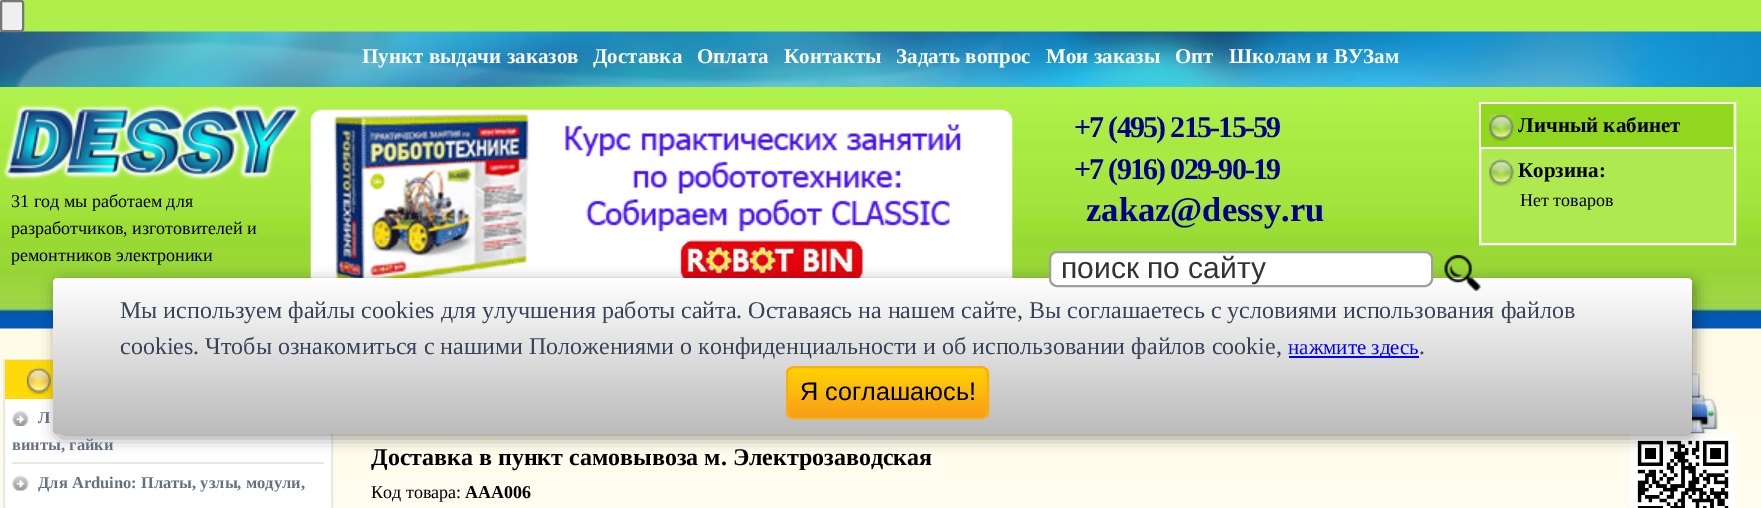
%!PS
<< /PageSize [1761 508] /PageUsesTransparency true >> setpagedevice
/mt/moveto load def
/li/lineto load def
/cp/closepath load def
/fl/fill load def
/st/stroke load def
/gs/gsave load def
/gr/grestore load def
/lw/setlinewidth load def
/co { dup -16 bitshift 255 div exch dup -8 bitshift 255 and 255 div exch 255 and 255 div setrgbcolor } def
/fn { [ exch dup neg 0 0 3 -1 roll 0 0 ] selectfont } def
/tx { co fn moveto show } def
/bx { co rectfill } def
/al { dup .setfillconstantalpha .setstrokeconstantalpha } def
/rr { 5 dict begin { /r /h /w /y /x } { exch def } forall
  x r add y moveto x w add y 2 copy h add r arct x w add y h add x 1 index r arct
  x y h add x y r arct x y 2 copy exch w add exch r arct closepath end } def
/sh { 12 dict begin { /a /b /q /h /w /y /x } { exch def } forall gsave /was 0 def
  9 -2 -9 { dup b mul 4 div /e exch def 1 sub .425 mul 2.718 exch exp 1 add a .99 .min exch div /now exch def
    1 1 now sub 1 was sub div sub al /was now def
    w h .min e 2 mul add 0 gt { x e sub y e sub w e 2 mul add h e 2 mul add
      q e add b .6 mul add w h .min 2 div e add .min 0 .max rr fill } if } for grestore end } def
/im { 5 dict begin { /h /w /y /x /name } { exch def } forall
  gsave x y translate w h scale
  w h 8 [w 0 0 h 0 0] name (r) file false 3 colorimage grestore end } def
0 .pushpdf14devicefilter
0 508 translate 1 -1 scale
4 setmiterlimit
0 0 1761 508 16#FFFFFF bx
(media/1.raw) 0 328 1761 180 im
(media/2.raw) 0 0 1761 329 im
(media/3.raw) 0 31 1761 56 im
16#EFEFEF co
1 1 22 30 2 rr gs fl gr
16#767676 co
2 lw
st
(media/4.raw) 310 109 703 169 im
16#AFE950 co
1480 103 mt 1735 103 li 1735 244 li 1480 244 li cp gs fl gr
16#FFFFFF co
st
1481 104 252 43 16#91D71F bx
1481 147 252 2 16#FFFFFF bx
(media/5.raw) 1489 114 25 27 im
(media/6.raw) 1489 159 25 27 im
(media/7.raw) 3 103 300 77 im
5 399 326 109 16#FFFFFF bx
16#E9E9E7 co
4 360 328 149 rectstroke
5 360 48 39 16#FFDA0A bx
(media/9.raw) 27 367 24 28 im
(media/12.raw) 1686 373 32 61 im
(media/13.raw) 1630 433 106 75 im
16#000000 co
56 282 1639 156 6 7.5 .4 sh
gs 53 278 1639 156 6 rr clip newpath
<< /ShadingType 2 /ColorSpace /DeviceRGB /Coords [872 277 872 434] /Extend [true true] /Function << /FunctionType 2 /Domain [0 1] /C0 [1 1 1] /C1 [.733 .733 .733] /N 1 >> >> shfill gr
16#FFFFFF co
1050 252 382 34 7 rr gs fl gr
16#A09F9F co
st
(media/8.raw) 1444 255 37 36 im
12 462 312 2 16#E9E9E7 bx
(media/10.raw) 12 411 17 15 im
(media/11.raw) 12 475 17 16 im
1289 356 130 2 16#0000FF bx
gs
786 366 203 53 8 rr clip newpath
gs 786 368 mt 989 368 li 989 417 li 786 417 li cp clip newpath
<< /ShadingType 2 /ColorSpace /DeviceRGB /Coords [887 368 887 417] /Extend [true true] /Function << /FunctionType 2 /Domain [0 1] /C0 [1 .831 .012] /C1 [.973 .616 .09] /N 1 >> >> shfill gr
gr
16#FAAC11 co
787 367 201 51 7 rr st
(Пункт выдачи заказов) 362 63 /LiberationSerif-Bold 21 16#FFFFFF tx
(Доставка) 593 63 /LiberationSerif-Bold 21 16#FFFFFF tx
(Оплата) 697 63 /LiberationSerif-Bold 21 16#FFFFFF tx
(Контакты) 784 63 /LiberationSerif-Bold 21 16#FFFFFF tx
(Задать вопрос) 896 63 /LiberationSerif-Bold 21 16#FFFFFF tx
(Мои заказы) 1046 63 /LiberationSerif-Bold 21 16#FFFFFF tx
(Опт) 1175 63 /LiberationSerif-Bold 21 16#FFFFFF tx
(Школам и ВУЗам) 1229 63 /LiberationSerif-Bold 21 16#FFFFFF tx
/LiberationSerif-Bold 30 fn
16#00008B co
1074 137 mt -1.75 0 (+7 \(495\) 215-15-59) ashow
1074 179 mt -1.75 0 (+7 \(916\) 029-90-19) ashow
(Личный кабинет) 1518 132 /LiberationSerif-Bold 21 16#000000 tx
(Корзина:) 1518 177 /LiberationSerif-Bold 21 16#000000 tx
(Нет товаров) 1520 206 /LiberationSerif-Regular 18 16#000000 tx
(31 год мы работаем для) 11 207 /LiberationSerif-Regular 18 16#000000 tx
(разработчиков, изготовителей и) 11 234 /LiberationSerif-Regular 18 16#000000 tx
(ремонтников электроники) 11 261 /LiberationSerif-Regular 18 16#000000 tx
(zakaz@dessy.ru) 1086 221 /LiberationSerif-Bold 34.5 16#00008B tx
(поиск по сайту) 1061 278 /LiberationSans-Regular 30 16#333333 tx
(Л) 38 423 /LiberationSerif-Bold 16.5 16#667083 tx
(винты, гайки) 12 450 /LiberationSerif-Bold 16.5 16#667083 tx
(Для Arduino: Платы, узлы, модули,) 38 488 /LiberationSerif-Bold 16.5 16#667083 tx
(Доставка в пункт самовывоза м. Электрозаводская) 371 465 /LiberationSerif-Bold 24 16#000000 tx
(Код товара:) 371 498 /LiberationSerif-Regular 18 16#000000 tx
(AAA006) 465 498 /LiberationSerif-Bold 18 16#000000 tx
(Мы используем файлы cookies для улучшения работы сайта. Оставаясь на нашем сайте, Bы соглашаетесь с условиями использования файлов) 120 318 /LiberationSerif-Regular 24 16#394357 tx
(cookies. Чтобы ознакомиться с нашими Положениями о конфиденциальности и об использовании файлов cookie,) 120 354 /LiberationSerif-Regular 24 16#394357 tx
(нажмите здесь) 1288 354 /LiberationSerif-Regular 21 16#0000FF tx
(.) 1419 354 /LiberationSerif-Regular 24 16#394357 tx
(Я соглашаюсь!) 800 400 /LiberationSans-Regular 25.25 16#000000 tx
.poppdf14devicefilter showpage
